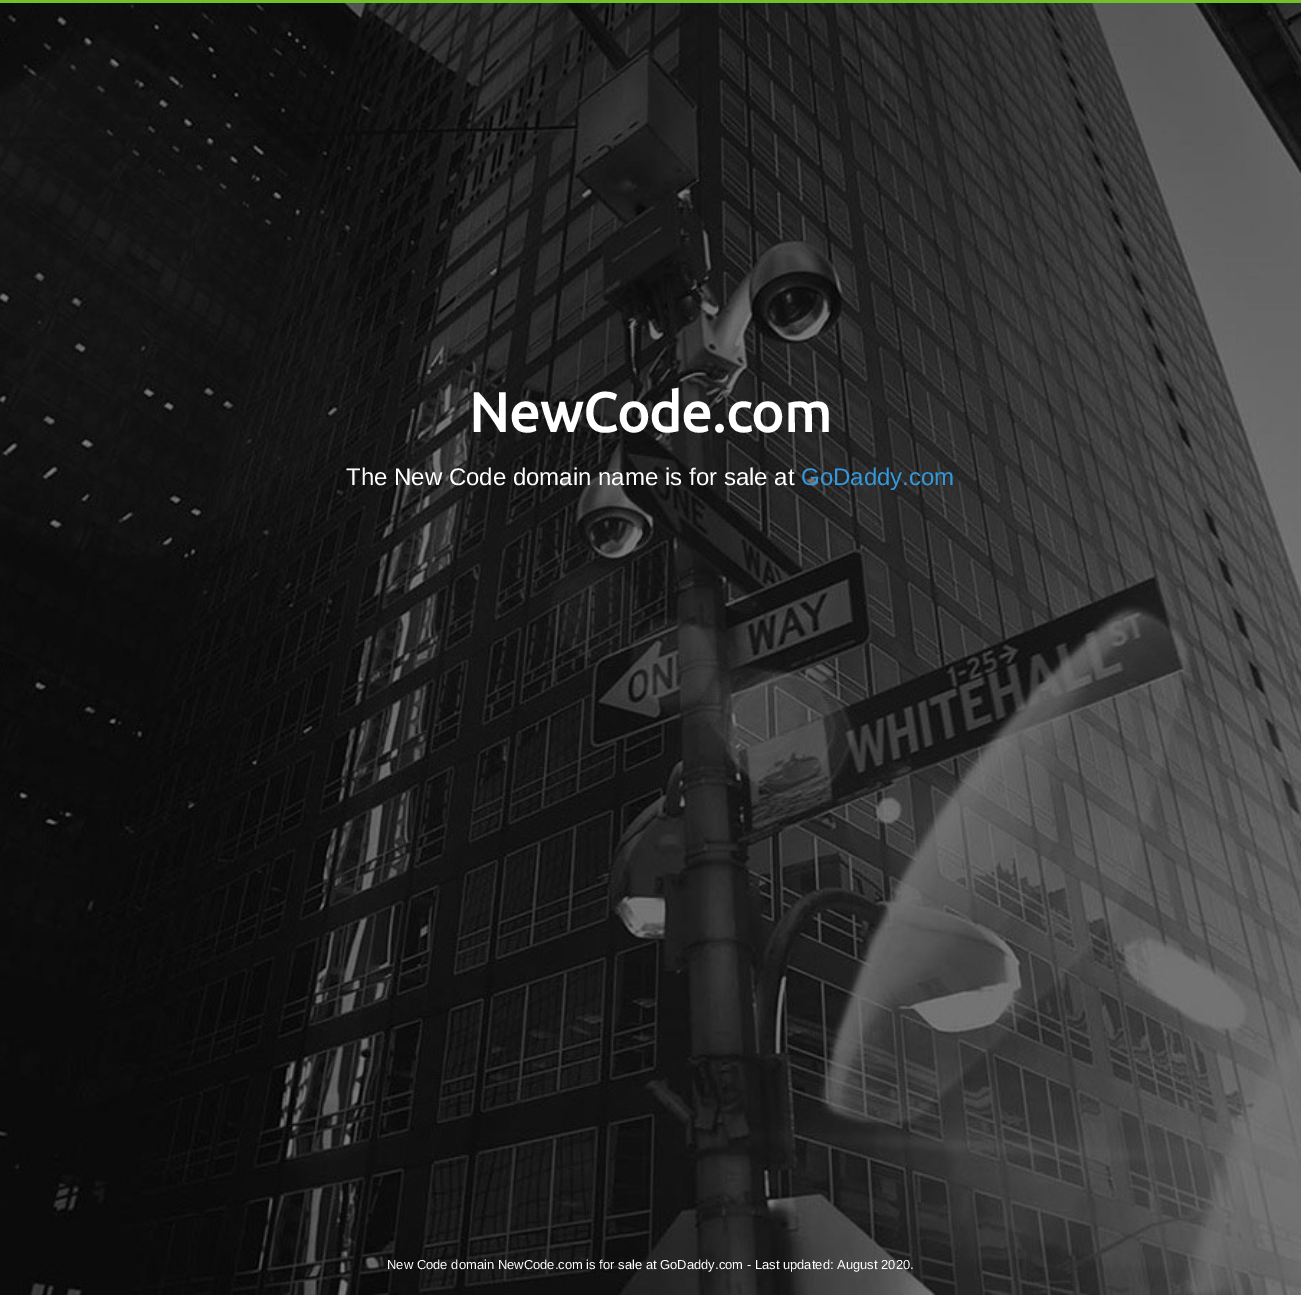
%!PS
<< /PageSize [1301 1295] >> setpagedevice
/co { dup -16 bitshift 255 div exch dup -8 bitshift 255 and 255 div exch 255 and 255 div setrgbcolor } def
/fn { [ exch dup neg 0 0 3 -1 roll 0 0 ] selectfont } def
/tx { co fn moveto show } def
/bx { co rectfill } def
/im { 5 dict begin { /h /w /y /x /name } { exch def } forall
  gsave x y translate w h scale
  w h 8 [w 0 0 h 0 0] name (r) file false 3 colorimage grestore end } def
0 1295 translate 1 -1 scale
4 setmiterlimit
0 0 1301 1295 16#FFFFFF bx
0 0 1301 3 16#72C02C bx
(media/1.raw) 0 3 1301 1292 im
(NewCode.com) 469 432 /Ubuntu-Bold 55 16#FFFFFF tx
(The New Code domain name is for sale at) 346 485 /LiberationSans-Regular 24 16#FFFFFF tx
(GoDaddy.com) 801 485 /LiberationSans-Regular 24 16#3498DB tx
(New Code domain NewCode.com is for sale at GoDaddy.com - Last updated: August 2020.) 387 1269 /LiberationSans-Regular 13 16#FFFFFF tx
showpage
